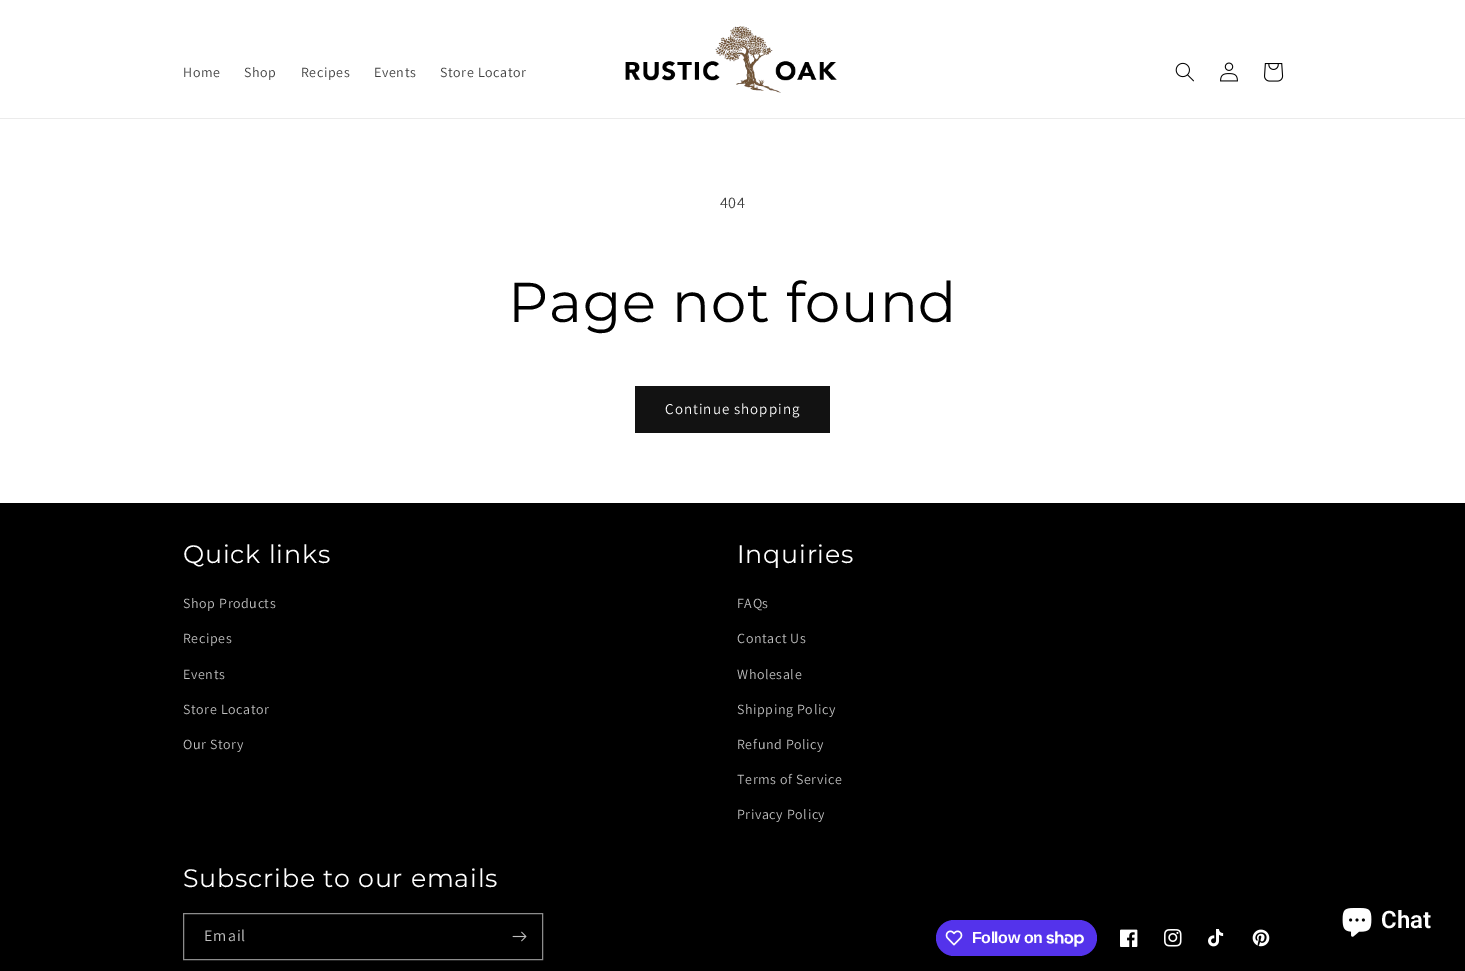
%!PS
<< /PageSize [1465 971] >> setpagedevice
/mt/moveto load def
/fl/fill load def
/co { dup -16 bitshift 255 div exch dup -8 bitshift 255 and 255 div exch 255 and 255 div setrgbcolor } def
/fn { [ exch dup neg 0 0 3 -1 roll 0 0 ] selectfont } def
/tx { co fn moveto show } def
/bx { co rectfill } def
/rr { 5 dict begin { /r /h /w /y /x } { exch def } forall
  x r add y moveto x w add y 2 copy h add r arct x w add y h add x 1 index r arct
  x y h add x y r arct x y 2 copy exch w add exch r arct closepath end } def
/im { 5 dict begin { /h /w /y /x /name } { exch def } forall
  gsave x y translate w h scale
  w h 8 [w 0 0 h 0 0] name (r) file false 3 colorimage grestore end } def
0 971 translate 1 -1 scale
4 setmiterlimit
0 0 1465 971 16#FFFFFF bx
0 118 1465 1 16#EBEBEB bx
(media/1.raw) 625 26 212 67 im
(media/2.raw) 1175 62 19 20 im
(media/3.raw) 1220 62 18 20 im
(media/4.raw) 1264 63 20 19 im
635 386 195 47 16#121212 bx
0 503 1465 468 16#000000 bx
16#8C8C8C co
183.5 913.5 359 46 rectstroke
(media/5.raw) 512 931 15 11 im
16#5433EB co
936 920 161 36 18 rr fl
(media/6.raw) 945 930 18 16 im
(media/7.raw) 1046 931 38 16 im
(media/8.raw) 1120 929 18 18 im
(media/9.raw) 1164 929 18 18 im
(media/10.raw) 1208 929 16 18 im
(media/11.raw) 1252 929 18 18 im
(media/12.raw) 1342 908 30 29 im
/Assistant-Regular 14 fn
16#404040 co
183 77 mt .6 0 (Home) ashow
244 77 mt .6 0 (Shop) ashow
301 77 mt .6 0 (Recipes) ashow
374 77 mt .6 0 (Events) ashow
440 77 mt .6 0 (Store Locator) ashow
/Assistant-Regular 16 fn
720 208 mt .6 0 (404) ashow
/Montserrat-Regular 56 fn
16#000000 co
508 322 mt .8 0 (Page not found) ashow
/Assistant-Regular 15 fn
16#FFFFFF co
665 414 mt 1 0 (Continue shopping) ashow
/Montserrat-Regular 25.25 fn
183 563 mt .8 0 (Quick links) ashow
/Assistant-Regular 14 fn
16#BFBFBF co
183 608 mt .6 0 (Shop Products) ashow
183 643 mt .6 0 (Recipes) ashow
183 679 mt .6 0 (Events) ashow
183 714 mt .6 0 (Store Locator) ashow
183 749 mt .6 0 (Our Story) ashow
/Montserrat-Regular 25.25 fn
16#FFFFFF co
737 563 mt .8 0 (Inquiries) ashow
/Assistant-Regular 14 fn
16#BFBFBF co
737 608 mt .6 0 (FAQs) ashow
737 643 mt .6 0 (Contact Us) ashow
737 679 mt .6 0 (Wholesale) ashow
737 714 mt .6 0 (Shipping Policy) ashow
737 749 mt .6 0 (Refund Policy) ashow
737 784 mt .6 0 (Terms of Service) ashow
737 819 mt .6 0 (Privacy Policy) ashow
/Montserrat-Regular 25.25 fn
16#FFFFFF co
183 887 mt .8 0 (Subscribe to our emails) ashow
/Assistant-Regular 16 fn
16#BFBFBF co
204 941 mt 1 0 (Email) ashow
/LiberationSans-Bold 16 fn
16#FFFFFF co
972 943 mt -.5 0 (Follow on) ashow
(Chat) 1381 928 /Roboto-SemiBold 24 16#FFFFFF tx
showpage
